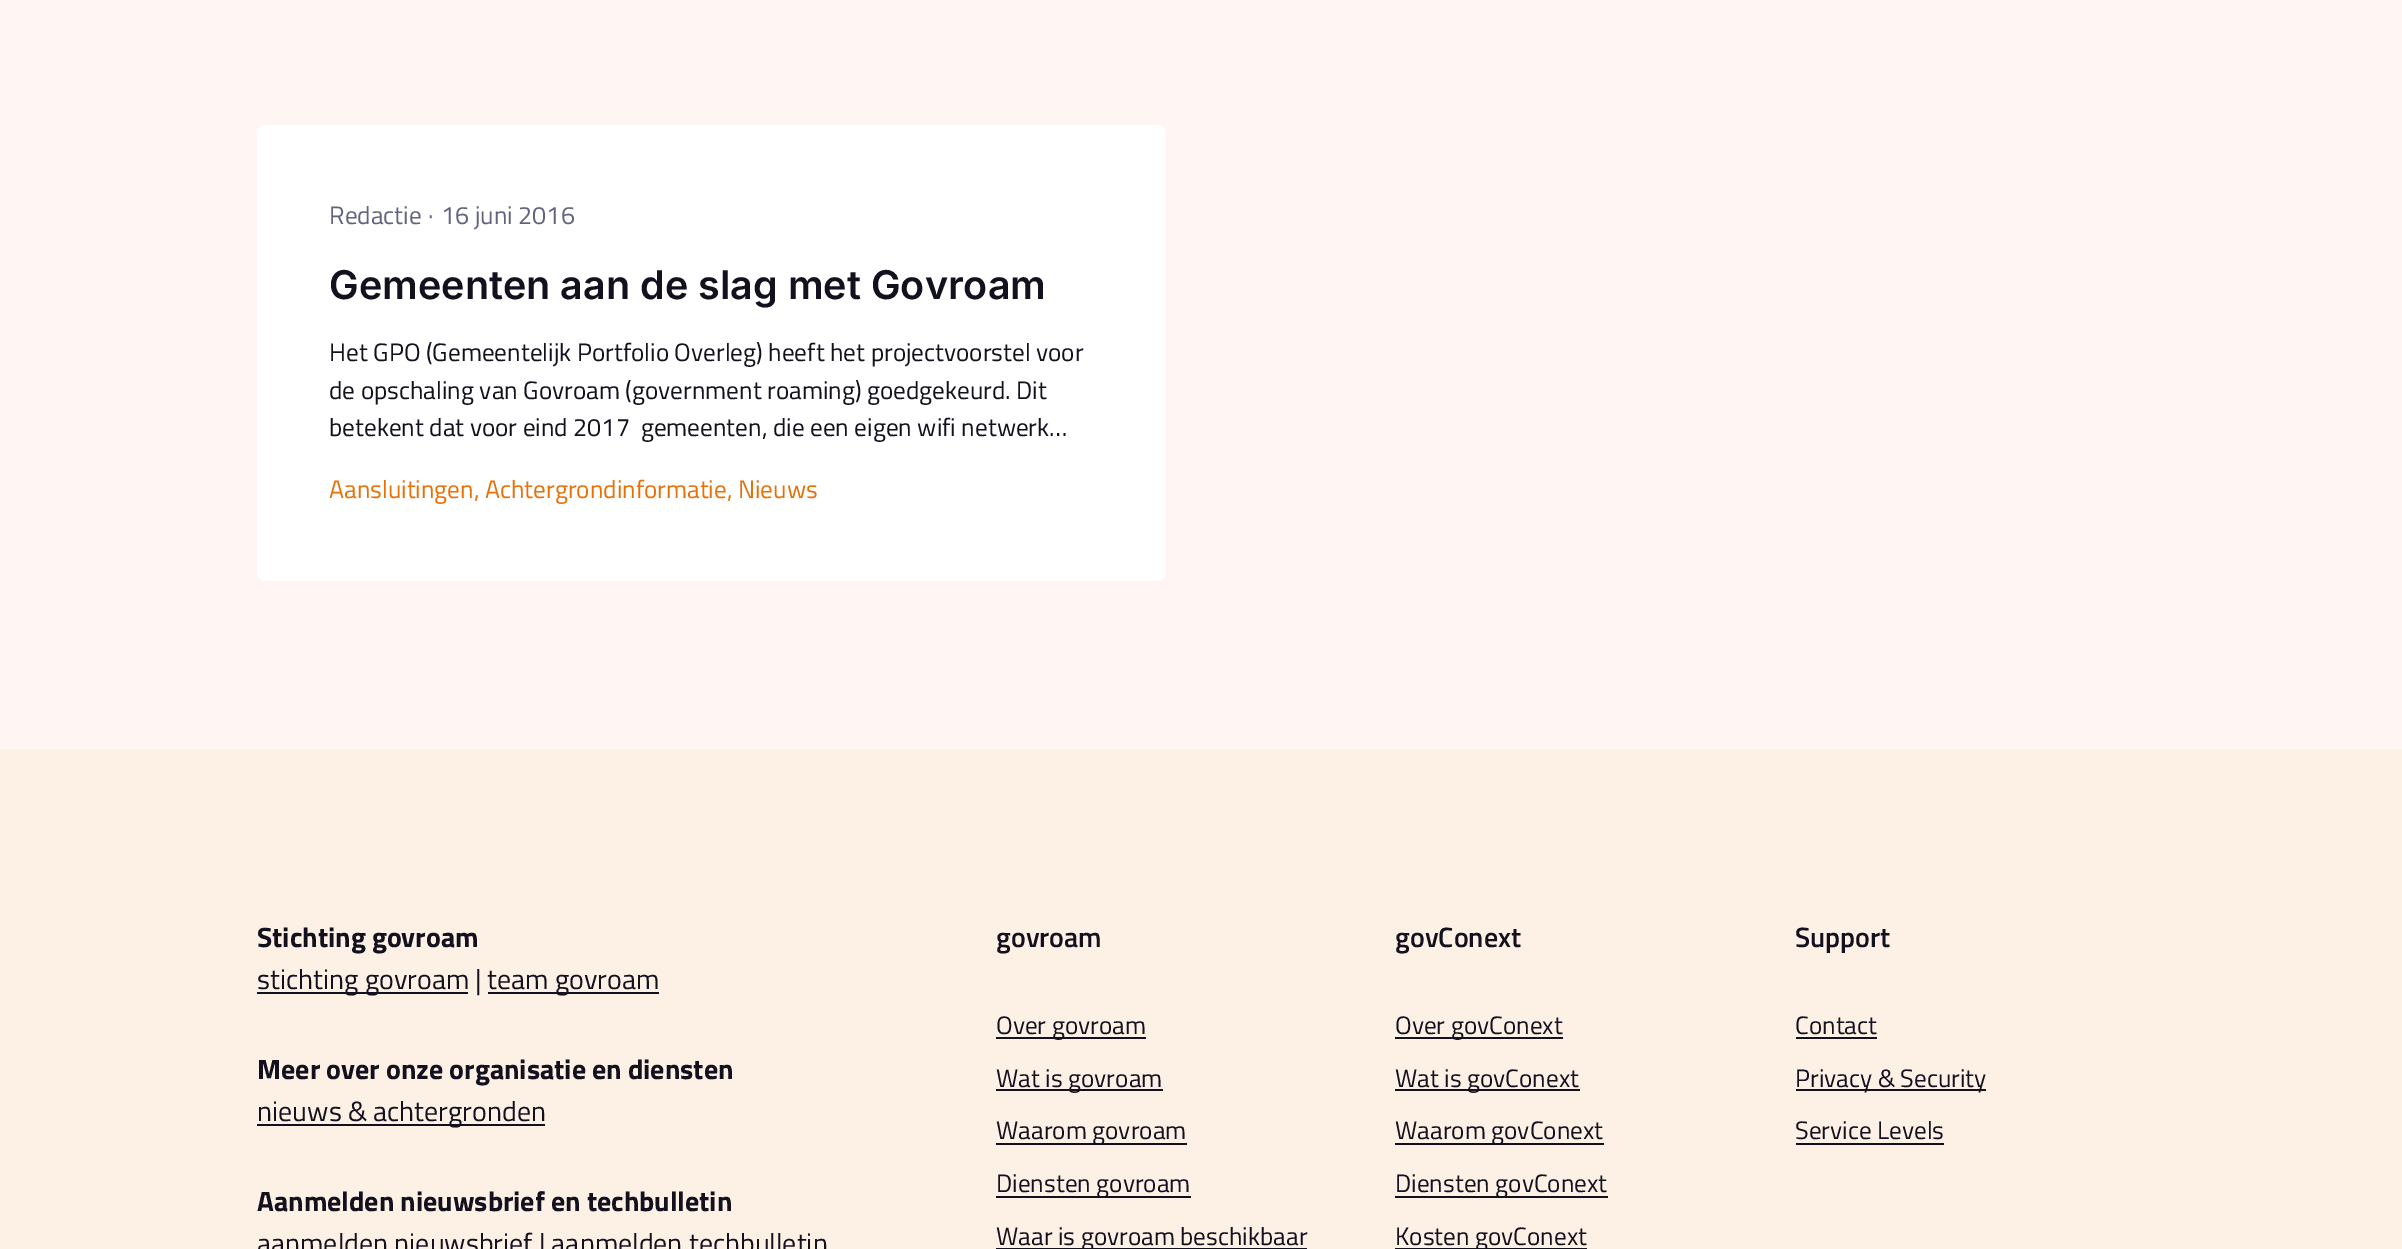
%!PS
<< /PageSize [2402 1249] >> setpagedevice
/fl/fill load def
/co { dup -16 bitshift 255 div exch dup -8 bitshift 255 and 255 div exch 255 and 255 div setrgbcolor } def
/fn { [ exch dup neg 0 0 3 -1 roll 0 0 ] selectfont } def
/tx { co fn moveto show } def
/bx { co rectfill } def
/rr { 5 dict begin { /r /h /w /y /x } { exch def } forall
  x r add y moveto x w add y 2 copy h add r arct x w add y h add x 1 index r arct
  x y h add x y r arct x y 2 copy exch w add exch r arct closepath end } def
0 1249 translate 1 -1 scale
4 setmiterlimit
0 0 2402 1249 16#FFF6F4 bx
16#FFFFFF co
257 125 909 456 8 rr fl
0 749 2402 500 16#FDF1E6 bx
257 992 211 2 16#14111F bx
488 992 171 2 16#14111F bx
257 1124 288 2 16#14111F bx
996 1037 150 2 16#14111F bx
996 1089 167 2 16#14111F bx
996 1143 191 2 16#14111F bx
996 1196 195 2 16#14111F bx
996 1248 311 1 16#14111F bx
1395 1037 168 2 16#14111F bx
1395 1089 185 2 16#14111F bx
1395 1143 209 2 16#14111F bx
1395 1196 213 2 16#14111F bx
1395 1248 192 1 16#14111F bx
1796 1037 81 2 16#14111F bx
1796 1089 190 2 16#14111F bx
1796 1143 148 2 16#14111F bx
(Redactie) 329 224 /TitilliumWeb-Regular 25.2 16#636381 tx
(·) 428 224 /TitilliumWeb-Regular 25.2 16#636381 tx
(16 juni 2016) 441 224 /TitilliumWeb-Regular 25.2 16#636381 tx
(Gemeenten aan de slag met Govroam) 329 299 /Inter-SemiBold 39.6 16#14111F tx
(Het GPO \(Gemeentelijk Portfolio Overleg\) heeft het projectvoorstel voor) 329 361 /TitilliumWeb-Regular 25.2 16#14111F tx
(de opschaling van Govroam \(government roaming\) goedgekeurd. Dit) 329 399 /TitilliumWeb-Regular 25.2 16#14111F tx
(betekent dat voor eind 2017  gemeenten, die een eigen wifi netwerk…) 329 436 /TitilliumWeb-Regular 25.2 16#14111F tx
(Aansluitingen, Achtergrondinformatie, Nieuws) 329 498 /TitilliumWeb-Regular 25.2 16#E77007 tx
(Stichting govroam) 257 947 /TitilliumWeb-Bold 28 16#14111F tx
(stichting govroam |) 257 989 /TitilliumWeb-Regular 28 16#14111F tx
(team govroam) 487 989 /TitilliumWeb-Regular 28 16#14111F tx
(Meer over onze organisatie en diensten) 257 1079 /TitilliumWeb-Bold 28 16#14111F tx
(nieuws & achtergronden) 257 1121 /TitilliumWeb-Regular 28 16#14111F tx
(Aanmelden nieuwsbrief en techbulletin) 257 1211 /TitilliumWeb-Bold 28 16#14111F tx
(aanmelden nieuwsbrief | aanmelden techbulletin) 257 1253 /TitilliumWeb-Regular 28 16#14111F tx
(govroam) 996 947 /TitilliumWeb-SemiBold 28 16#14111F tx
(Over govroam) 996 1034 /TitilliumWeb-Regular 25.2 16#14111F tx
(Wat is govroam) 996 1087 /TitilliumWeb-Regular 25.2 16#14111F tx
(Waarom govroam) 996 1139 /TitilliumWeb-Regular 25.2 16#14111F tx
(Diensten govroam) 996 1192 /TitilliumWeb-Regular 25.2 16#14111F tx
(Waar is govroam beschikbaar) 996 1245 /TitilliumWeb-Regular 25.2 16#14111F tx
(govConext) 1395 947 /TitilliumWeb-SemiBold 28 16#14111F tx
(Over govConext) 1395 1034 /TitilliumWeb-Regular 25.2 16#14111F tx
(Wat is govConext) 1395 1087 /TitilliumWeb-Regular 25.2 16#14111F tx
(Waarom govConext) 1395 1139 /TitilliumWeb-Regular 25.2 16#14111F tx
(Diensten govConext) 1395 1192 /TitilliumWeb-Regular 25.2 16#14111F tx
(Kosten govConext) 1395 1245 /TitilliumWeb-Regular 25.2 16#14111F tx
(Support) 1795 947 /TitilliumWeb-SemiBold 28 16#14111F tx
(Contact) 1795 1034 /TitilliumWeb-Regular 25.2 16#14111F tx
(Privacy & Security) 1795 1087 /TitilliumWeb-Regular 25.2 16#14111F tx
(Service Levels) 1795 1139 /TitilliumWeb-Regular 25.2 16#14111F tx
showpage
